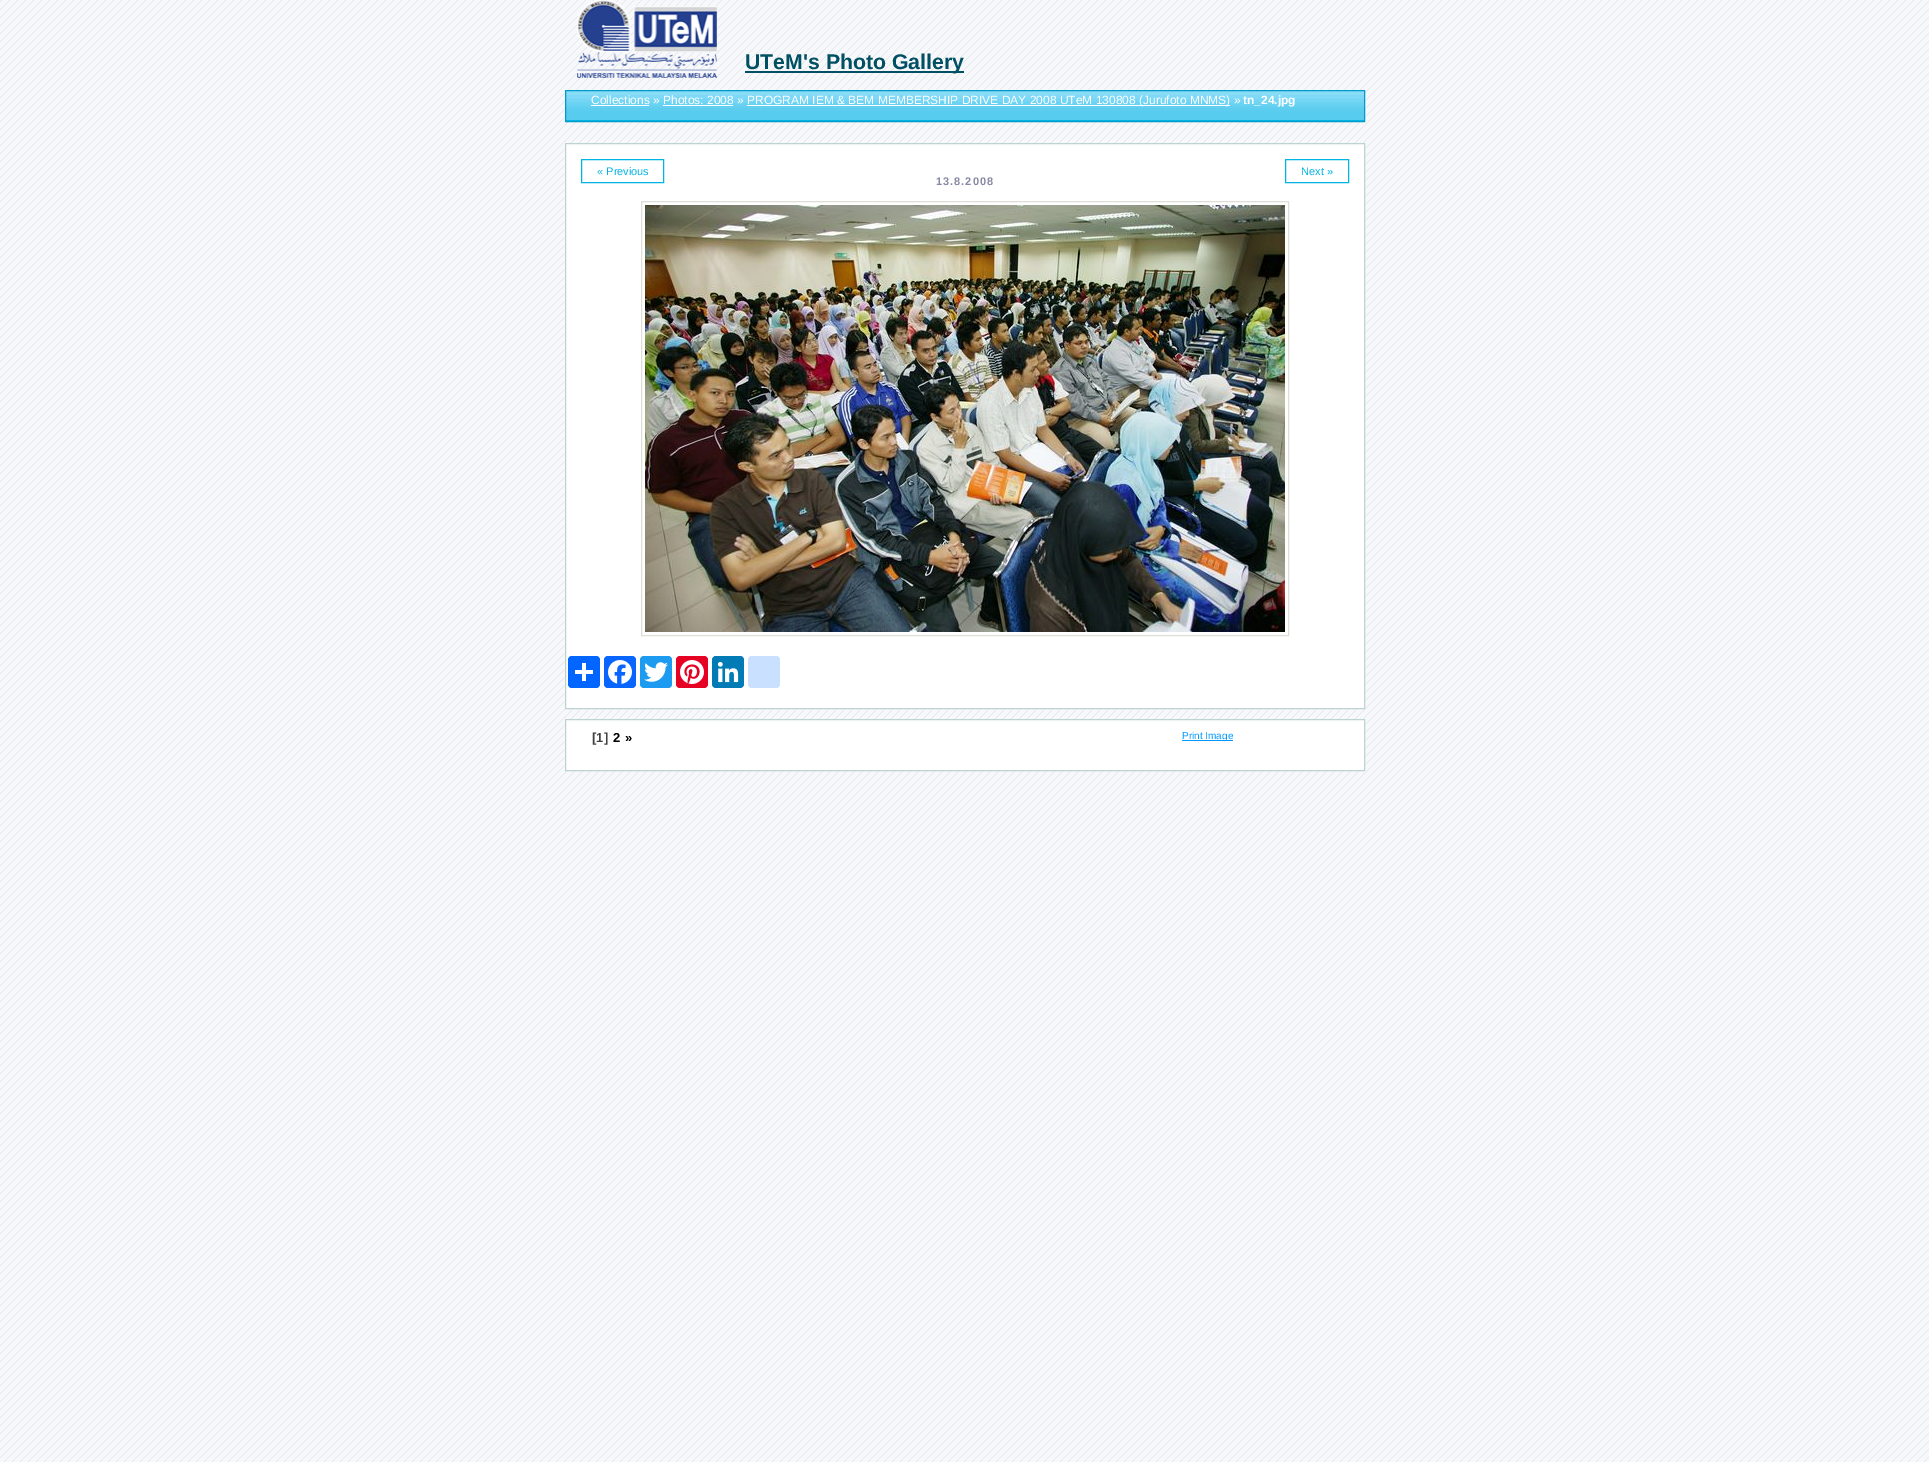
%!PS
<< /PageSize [1929 1462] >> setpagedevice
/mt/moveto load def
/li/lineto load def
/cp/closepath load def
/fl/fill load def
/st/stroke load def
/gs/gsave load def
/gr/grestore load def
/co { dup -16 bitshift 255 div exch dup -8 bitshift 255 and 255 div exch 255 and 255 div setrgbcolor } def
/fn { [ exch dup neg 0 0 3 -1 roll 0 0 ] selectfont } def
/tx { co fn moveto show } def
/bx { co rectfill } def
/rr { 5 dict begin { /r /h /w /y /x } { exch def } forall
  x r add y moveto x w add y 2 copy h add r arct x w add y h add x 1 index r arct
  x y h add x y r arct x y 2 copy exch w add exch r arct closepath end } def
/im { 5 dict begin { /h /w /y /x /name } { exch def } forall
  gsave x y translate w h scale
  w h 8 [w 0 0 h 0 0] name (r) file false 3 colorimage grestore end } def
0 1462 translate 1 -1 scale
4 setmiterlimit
0 0 1929 1462 16#FFFFFF bx
(media/1.raw) 0 0 1929 1462 im
(media/2.raw) 577 0 140 78 im
745 71 219 2 16#004F62 bx
566 120 798 1 16#01B4E2 bx
(media/3.raw) 566 91 798 29 im
16#039ACB co
565.5 90.5 799 31 rectstroke
591 105 58 1 16#FFFFFF bx
747 105 483 1 16#FFFFFF bx
663 105 70 1 16#FFFFFF bx
565.5 143.5 mt 1364.5 143.5 li 1364.5 708.5 li 565.5 708.5 li cp gs fl gr
16#BED2D2 co
st
16#01B4E2 co
581.5 159.5 82 23 rectstroke
1285.5 159.5 63 23 rectstroke
16#DFDED6 co
641.5 201.5 647 434 rectstroke
(media/4.raw) 645 205 640 427 im
16#0166FF co
568 656 32 32 4 rr fl
582 663 4 18 16#FFFFFF bx
575 670 18 4 16#FFFFFF bx
16#0866FF co
604 656 32 32 4 rr fl
(media/5.raw) 608 660 24 24 im
16#1D9BF0 co
640 656 32 32 4 rr fl
(media/6.raw) 644 662 24 20 im
16#E60023 co
676 656 32 32 4 rr fl
(media/7.raw) 680 660 24 24 im
16#007BB5 co
712 656 32 32 4 rr fl
(media/8.raw) 717 661 22 22 im
16#CAE0FF co
748 656 32 32 4 rr fl
16#FFFFFF co
565.5 719.5 mt 1364.5 719.5 li 1364.5 770.5 li 565.5 770.5 li cp gs fl gr
16#BED2D2 co
st
1182 740 51 1 16#0099FF bx
(UTeM's Photo Gallery) 745 69 /LiberationSans-Bold 21.25 16#004F62 tx
(Collections » Photos: 2008 ») 591 104 /LiberationSans-Regular 12 16#FFFFFF tx
(PROGRAM IEM & BEM MEMBERSHIP DRIVE DAY 2008 UTeM 130808 \(Jurufoto MNMS\) ») 747 104 /LiberationSans-Regular 12 16#FFFFFF tx
(tn_24.jpg) 1243 104 /LiberationSans-Bold 12 16#FFFFFF tx
(« Previous) 597 175 /LiberationSans-Regular 11 16#01B4E2 tx
(Next ») 1301 175 /LiberationSans-Regular 11 16#01B4E2 tx
/LiberationSans-Bold 11 fn
16#8689A2 co
936 185 mt 1 0 (13.8.2008) ashow
([1]) 592 742 /LiberationSans-Bold 13 16#404040 tx
(2) 613 742 /LiberationSans-Bold 13 16#000000 tx
(») 625 742 /LiberationSans-Bold 13 16#000000 tx
(Print Image) 1182 739 /LiberationSans-Regular 10 16#0099FF tx
showpage
